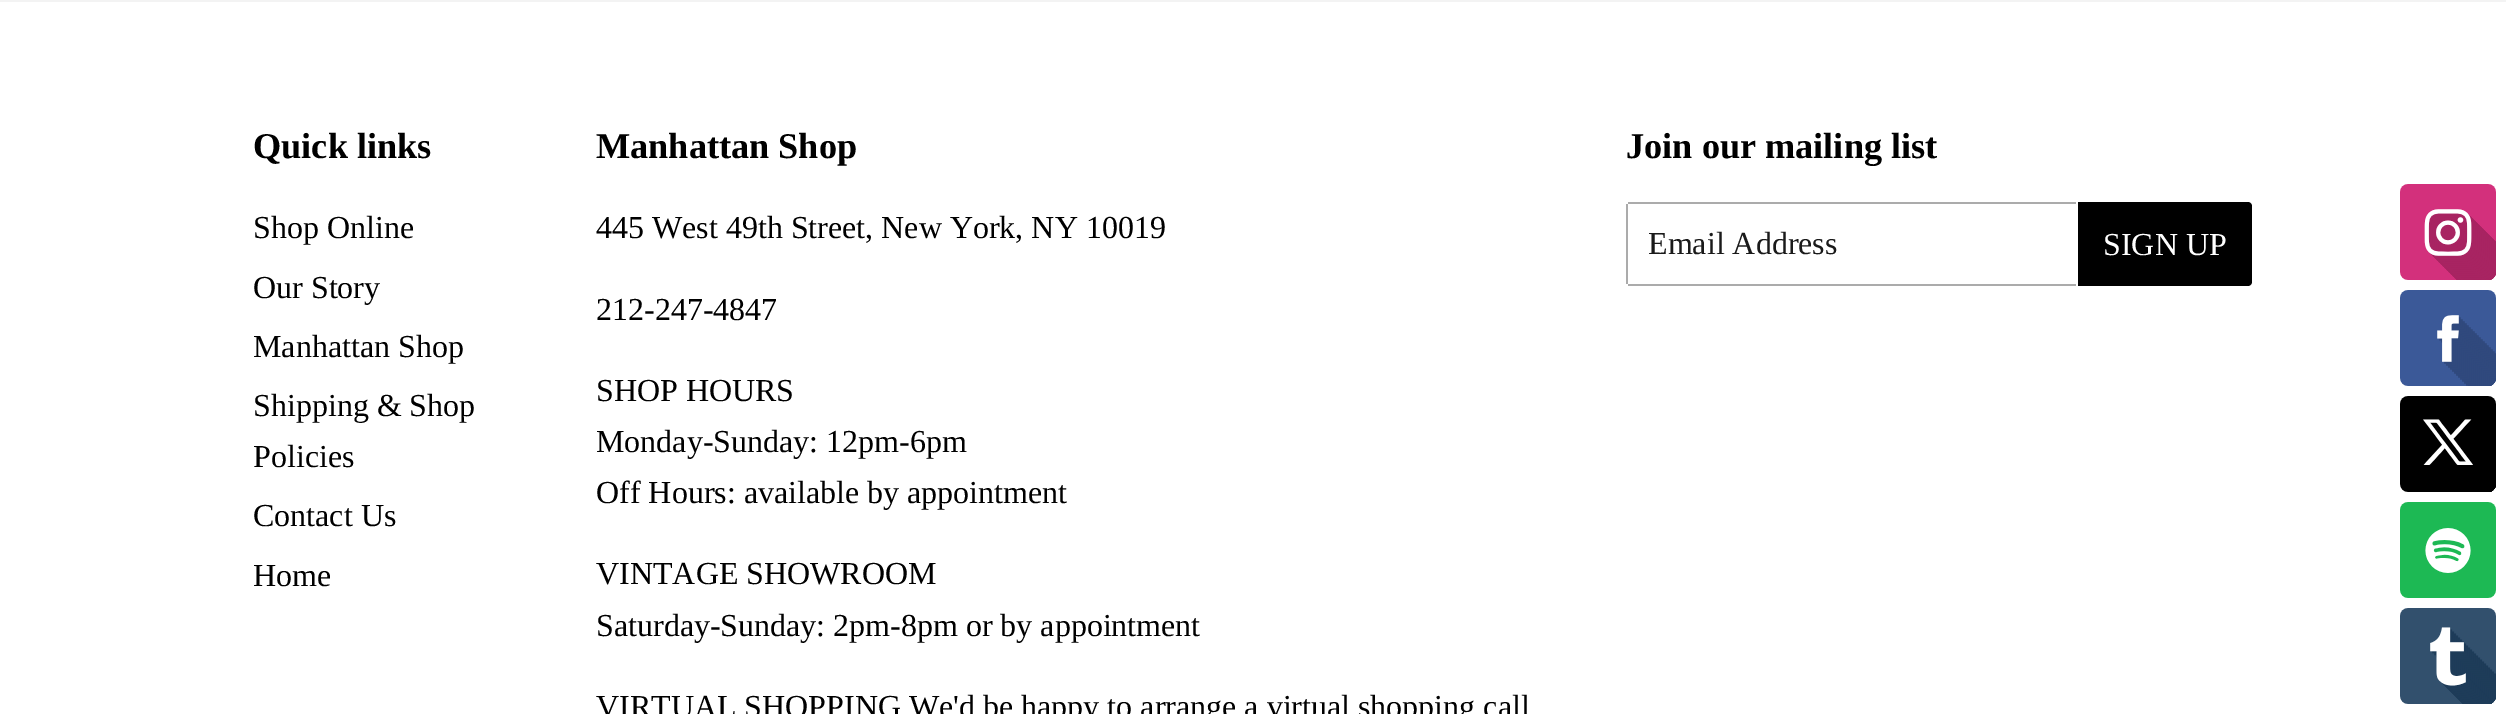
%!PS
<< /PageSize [2506 714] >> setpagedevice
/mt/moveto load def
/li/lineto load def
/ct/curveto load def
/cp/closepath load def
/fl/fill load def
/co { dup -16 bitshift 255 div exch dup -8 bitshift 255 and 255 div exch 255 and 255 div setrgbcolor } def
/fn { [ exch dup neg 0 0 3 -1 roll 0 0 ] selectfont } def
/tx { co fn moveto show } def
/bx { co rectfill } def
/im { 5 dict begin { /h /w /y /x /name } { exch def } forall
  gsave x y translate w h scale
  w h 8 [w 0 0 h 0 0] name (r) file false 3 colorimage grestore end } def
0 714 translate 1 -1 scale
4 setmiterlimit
0 0 2506 714 16#F3F3F3 bx
0 2 2506 712 16#FFFFFF bx
1628 202 448 2 16#ABABAB bx
1628 284 448 2 16#ABABAB bx
1626 204 2 80 16#ABABAB bx
16#000000 co
2078 202 mt 2248 202 li 2250 202 2252 204 2252 206 ct 2252 282 li 2252 284 2250 286 2248 286 ct 2078 286 li cp fl
(media/1.raw) 2400 184 96 520 im
(Quick links) 253 158 /LiberationSerif-Bold 36.25 16#000000 tx
(Shop Online) 253 238 /LiberationSerif-Regular 32 16#000000 tx
(Our Story) 253 298 /LiberationSerif-Regular 32 16#000000 tx
(Manhattan Shop) 253 357 /LiberationSerif-Regular 32 16#000000 tx
(Shipping & Shop) 253 416 /LiberationSerif-Regular 32 16#000000 tx
(Policies) 253 467 /LiberationSerif-Regular 32 16#000000 tx
(Contact Us) 253 526 /LiberationSerif-Regular 32 16#000000 tx
(Home) 253 586 /LiberationSerif-Regular 32 16#000000 tx
(Manhattan Shop) 596 158 /LiberationSerif-Bold 36.25 16#000000 tx
(445 West 49th Street, New York, NY 10019) 596 238 /LiberationSerif-Regular 32 16#000000 tx
(212-247-4847) 596 320 /LiberationSerif-Regular 32 16#000000 tx
(SHOP HOURS) 596 401 /LiberationSerif-Regular 32 16#000000 tx
(Monday-Sunday: 12pm-6pm) 596 452 /LiberationSerif-Regular 32 16#000000 tx
(Off Hours: available by appointment) 596 503 /LiberationSerif-Regular 32 16#000000 tx
(VINTAGE SHOWROOM) 596 584 /LiberationSerif-Regular 32 16#000000 tx
(Saturday-Sunday: 2pm-8pm or by appointment) 596 636 /LiberationSerif-Regular 32 16#000000 tx
(VIRTUAL SHOPPING We'd be happy to arrange a virtual shopping call) 596 717 /LiberationSerif-Regular 32 16#000000 tx
(Join our mailing list) 1626 158 /LiberationSerif-Bold 36.25 16#000000 tx
(Email Address) 1648 254 /LiberationSerif-Regular 32 16#1A1A1A tx
(SIGN UP) 2103 255 /LiberationSerif-Regular 32 16#FFFFFF tx
showpage
